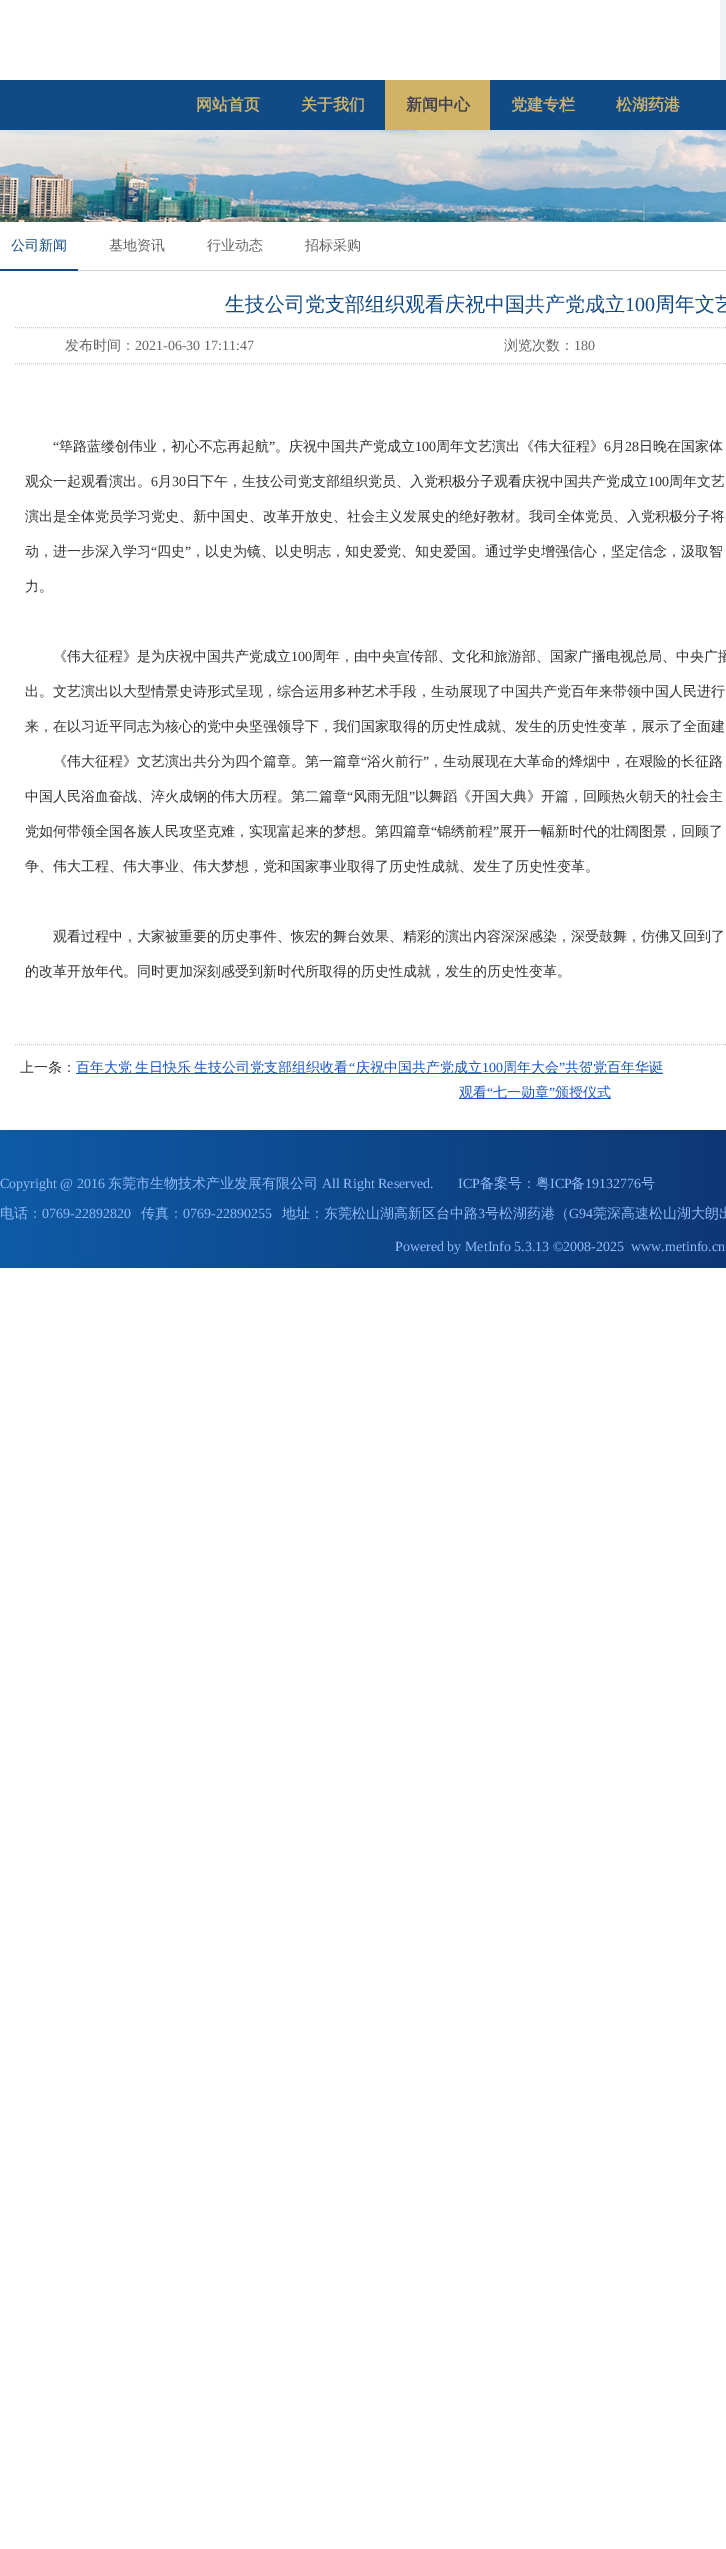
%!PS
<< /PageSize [726 2549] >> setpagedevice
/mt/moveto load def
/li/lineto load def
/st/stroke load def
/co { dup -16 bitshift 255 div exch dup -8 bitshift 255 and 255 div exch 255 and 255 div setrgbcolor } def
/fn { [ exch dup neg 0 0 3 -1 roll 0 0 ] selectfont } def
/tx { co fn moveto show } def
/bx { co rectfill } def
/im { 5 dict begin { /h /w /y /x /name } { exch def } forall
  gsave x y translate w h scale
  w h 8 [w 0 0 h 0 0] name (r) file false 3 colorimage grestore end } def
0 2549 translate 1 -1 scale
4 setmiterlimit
0 0 726 2549 16#FFFFFF bx
720 0 6 80 16#F0F1F4 bx
0 80 726 50 16#124A85 bx
385 80 105 50 16#D1B366 bx
(media/1.raw) 0 130 726 92 im
78 270 648 1 16#D2D2D2 bx
0 269 78 2 16#124A85 bx
16#CCCCCC co
[1 1] 0 setdash
15 327.5 mt 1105 327.5 li st
15 363.5 mt 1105 363.5 li st
15 1044.5 mt 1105 1044.5 li st
76 1073 587 1 16#1C57C4 bx
459 1098 152 1 16#1C57C4 bx
(media/2.raw) 0 1130 726 138 im
(网站首页) 196 110 /WenQuanYiZenHei-Bold 16 16#CCB46E tx
(关于我们) 301 110 /WenQuanYiZenHei-Bold 16 16#CCB46E tx
(新闻中心) 406 110 /WenQuanYiZenHei-Bold 16 16#42424E tx
(党建专栏) 511 110 /WenQuanYiZenHei-Bold 16 16#CCB46E tx
(松湖药港) 616 110 /WenQuanYiZenHei-Bold 16 16#CCB46E tx
(公司新闻) 11 250 /WenQuanYiZenHei-Medium 14 16#124A85 tx
(基地资讯) 109 250 /WenQuanYiZenHei-Medium 14 16#666666 tx
(行业动态) 207 250 /WenQuanYiZenHei-Medium 14 16#666666 tx
(招标采购) 305 250 /WenQuanYiZenHei-Medium 14 16#666666 tx
(生技公司党支部组织观看庆祝中国共产党成立) 225 311 /WenQuanYiZenHei-Medium 20 16#124A85 tx
(100) 625 311 /LiberationSerif-Regular 20 16#124A85 tx
(周年文艺) 655 311 /WenQuanYiZenHei-Medium 20 16#124A85 tx
(发布时间：) 65 350 /WenQuanYiZenHei-Medium 14 16#666666 tx
(2021-06-30 17:11:47) 135 350 /LiberationSerif-Regular 14 16#666666 tx
(浏览次数：) 504 350 /WenQuanYiZenHei-Medium 14 16#666666 tx
(180) 574 350 /LiberationSerif-Regular 14 16#666666 tx
(“) 53 451 /LiberationSerif-Regular 14 16#333333 tx
(筚路蓝缕创伟业，初心不忘再起航) 59 451 /WenQuanYiZenHei-Medium 14 16#333333 tx
(”) 269 451 /LiberationSerif-Regular 14 16#333333 tx
(。庆祝中国共产党成立) 275 451 /WenQuanYiZenHei-Medium 14 16#333333 tx
(100) 415 451 /LiberationSerif-Regular 14 16#333333 tx
(周年文艺演出《伟大征程》) 436 451 /WenQuanYiZenHei-Medium 14 16#333333 tx
(6) 604 451 /LiberationSerif-Regular 14 16#333333 tx
(月) 611 451 /WenQuanYiZenHei-Medium 14 16#333333 tx
(28) 625 451 /LiberationSerif-Regular 14 16#333333 tx
(日晚在国家体) 639 451 /WenQuanYiZenHei-Medium 14 16#333333 tx
(观众一起观看演出。) 25 486 /WenQuanYiZenHei-Medium 14 16#333333 tx
(6) 151 486 /LiberationSerif-Regular 14 16#333333 tx
(月) 158 486 /WenQuanYiZenHei-Medium 14 16#333333 tx
(30) 172 486 /LiberationSerif-Regular 14 16#333333 tx
(日下午，生技公司党支部组织党员、入党积极分子观看庆祝中国共产党成立) 186 486 /WenQuanYiZenHei-Medium 14 16#333333 tx
(100) 648 486 /LiberationSerif-Regular 14 16#333333 tx
(周年文艺) 669 486 /WenQuanYiZenHei-Medium 14 16#333333 tx
(演出是全体党员学习党史、新中国史、改革开放史、社会主义发展史的绝好教材。我司全体党员、入党积极分子将) 25 521 /WenQuanYiZenHei-Medium 14 16#333333 tx
(动，进一步深入学习) 25 556 /WenQuanYiZenHei-Medium 14 16#333333 tx
(“) 151 556 /LiberationSerif-Regular 14 16#333333 tx
(四史) 157 556 /WenQuanYiZenHei-Medium 14 16#333333 tx
(”) 185 556 /LiberationSerif-Regular 14 16#333333 tx
(，以史为镜、以史明志，知史爱党、知史爱国。通过学史增强信心，坚定信念，汲取智) 191 556 /WenQuanYiZenHei-Medium 14 16#333333 tx
(力。) 25 591 /WenQuanYiZenHei-Medium 14 16#333333 tx
(《伟大征程》是为庆祝中国共产党成立) 53 661 /WenQuanYiZenHei-Medium 14 16#333333 tx
(100) 291 661 /LiberationSerif-Regular 14 16#333333 tx
(周年，由中央宣传部、文化和旅游部、国家广播电视总局、中央广播) 312 661 /WenQuanYiZenHei-Medium 14 16#333333 tx
(出。文艺演出以大型情景史诗形式呈现，综合运用多种艺术手段，生动展现了中国共产党百年来带领中国人民进行) 25 696 /WenQuanYiZenHei-Medium 14 16#333333 tx
(来，在以习近平同志为核心的党中央坚强领导下，我们国家取得的历史性成就、发生的历史性变革，展示了全面建) 25 731 /WenQuanYiZenHei-Medium 14 16#333333 tx
(《伟大征程》文艺演出共分为四个篇章。第一篇章) 53 766 /WenQuanYiZenHei-Medium 14 16#333333 tx
(“) 361 766 /LiberationSerif-Regular 14 16#333333 tx
(浴火前行) 367 766 /WenQuanYiZenHei-Medium 14 16#333333 tx
(”) 423 766 /LiberationSerif-Regular 14 16#333333 tx
(，生动展现在大革命的烽烟中，在艰险的长征路) 429 766 /WenQuanYiZenHei-Medium 14 16#333333 tx
(中国人民浴血奋战、淬火成钢的伟大历程。第二篇章) 25 801 /WenQuanYiZenHei-Medium 14 16#333333 tx
(“) 347 801 /LiberationSerif-Regular 14 16#333333 tx
(风雨无阻) 353 801 /WenQuanYiZenHei-Medium 14 16#333333 tx
(”) 409 801 /LiberationSerif-Regular 14 16#333333 tx
(以舞蹈《开国大典》开篇，回顾热火朝天的社会主) 415 801 /WenQuanYiZenHei-Medium 14 16#333333 tx
(党如何带领全国各族人民攻坚克难，实现富起来的梦想。第四篇章) 25 836 /WenQuanYiZenHei-Medium 14 16#333333 tx
(“) 431 836 /LiberationSerif-Regular 14 16#333333 tx
(锦绣前程) 437 836 /WenQuanYiZenHei-Medium 14 16#333333 tx
(”) 493 836 /LiberationSerif-Regular 14 16#333333 tx
(展开一幅新时代的壮阔图景，回顾了) 499 836 /WenQuanYiZenHei-Medium 14 16#333333 tx
(争、伟大工程、伟大事业、伟大梦想，党和国家事业取得了历史性成就、发生了历史性变革。) 25 871 /WenQuanYiZenHei-Medium 14 16#333333 tx
(观看过程中，大家被重要的历史事件、恢宏的舞台效果、精彩的演出内容深深感染，深受鼓舞，仿佛又回到了) 53 941 /WenQuanYiZenHei-Medium 14 16#333333 tx
(的改革开放年代。同时更加深刻感受到新时代所取得的历史性成就，发生的历史性变革。) 25 976 /WenQuanYiZenHei-Medium 14 16#333333 tx
(上一条：) 20 1072 /WenQuanYiZenHei-Medium 14 16#333333 tx
16#1C57C4 co
76 1072 mt -1 0 32 (百年大党 生日快乐 生技公司党支部组织收看) widthshow
(“) 349 1072 /LiberationSerif-Regular 14 16#1C57C4 tx
(庆祝中国共产党成立) 356 1072 /WenQuanYiZenHei-Medium 14 16#1C57C4 tx
(100) 482 1072 /LiberationSerif-Regular 14 16#1C57C4 tx
(周年大会) 503 1072 /WenQuanYiZenHei-Medium 14 16#1C57C4 tx
(”) 559 1072 /LiberationSerif-Regular 14 16#1C57C4 tx
(共贺党百年华诞) 565 1072 /WenQuanYiZenHei-Medium 14 16#1C57C4 tx
(观看) 459 1097 /WenQuanYiZenHei-Medium 14 16#1C57C4 tx
(“) 487 1097 /LiberationSerif-Regular 14 16#1C57C4 tx
(七一勋章) 493 1097 /WenQuanYiZenHei-Medium 14 16#1C57C4 tx
(”) 549 1097 /LiberationSerif-Regular 14 16#1C57C4 tx
(颁授仪式) 555 1097 /WenQuanYiZenHei-Medium 14 16#1C57C4 tx
(Copyright @ 2016) 0 1188 /LiberationSerif-Regular 14 16#91BBFB tx
(东莞市生物技术产业发展有限公司) 108 1188 /WenQuanYiZenHei-Medium 14 16#91BBFB tx
(All Right Reserved.) 322 1188 /LiberationSerif-Regular 14 16#91BBFB tx
(ICP) 458 1188 /LiberationSerif-Regular 14 16#91BBFB tx
(备案号：粤) 480 1188 /WenQuanYiZenHei-Medium 14 16#91BBFB tx
(ICP) 550 1188 /LiberationSerif-Regular 14 16#91BBFB tx
(备) 571 1188 /WenQuanYiZenHei-Medium 14 16#91BBFB tx
(19132776) 585 1188 /LiberationSerif-Regular 14 16#91BBFB tx
(号) 641 1188 /WenQuanYiZenHei-Medium 14 16#91BBFB tx
(电话：) 0 1218 /WenQuanYiZenHei-Medium 14 16#91BBFB tx
(0769-22892820) 42 1218 /LiberationSerif-Regular 14 16#91BBFB tx
(传真：) 141 1218 /WenQuanYiZenHei-Medium 14 16#91BBFB tx
(0769-22890255) 183 1218 /LiberationSerif-Regular 14 16#91BBFB tx
(地址：东莞松山湖高新区台中路) 282 1218 /WenQuanYiZenHei-Medium 14 16#91BBFB tx
(3) 478 1218 /LiberationSerif-Regular 14 16#91BBFB tx
(号松湖药港（) 485 1218 /WenQuanYiZenHei-Medium 14 16#91BBFB tx
(G94) 569 1218 /LiberationSerif-Regular 14 16#91BBFB tx
(莞深高速松山湖大朗出) 593 1218 /WenQuanYiZenHei-Medium 14 16#91BBFB tx
(Powered by MetInfo 5.3.13 ©2008-2025) 395 1251 /LiberationSerif-Regular 14 16#91BBFB tx
(www.metinfo.cn) 631 1251 /LiberationSerif-Regular 14 16#91BBFB tx
showpage
